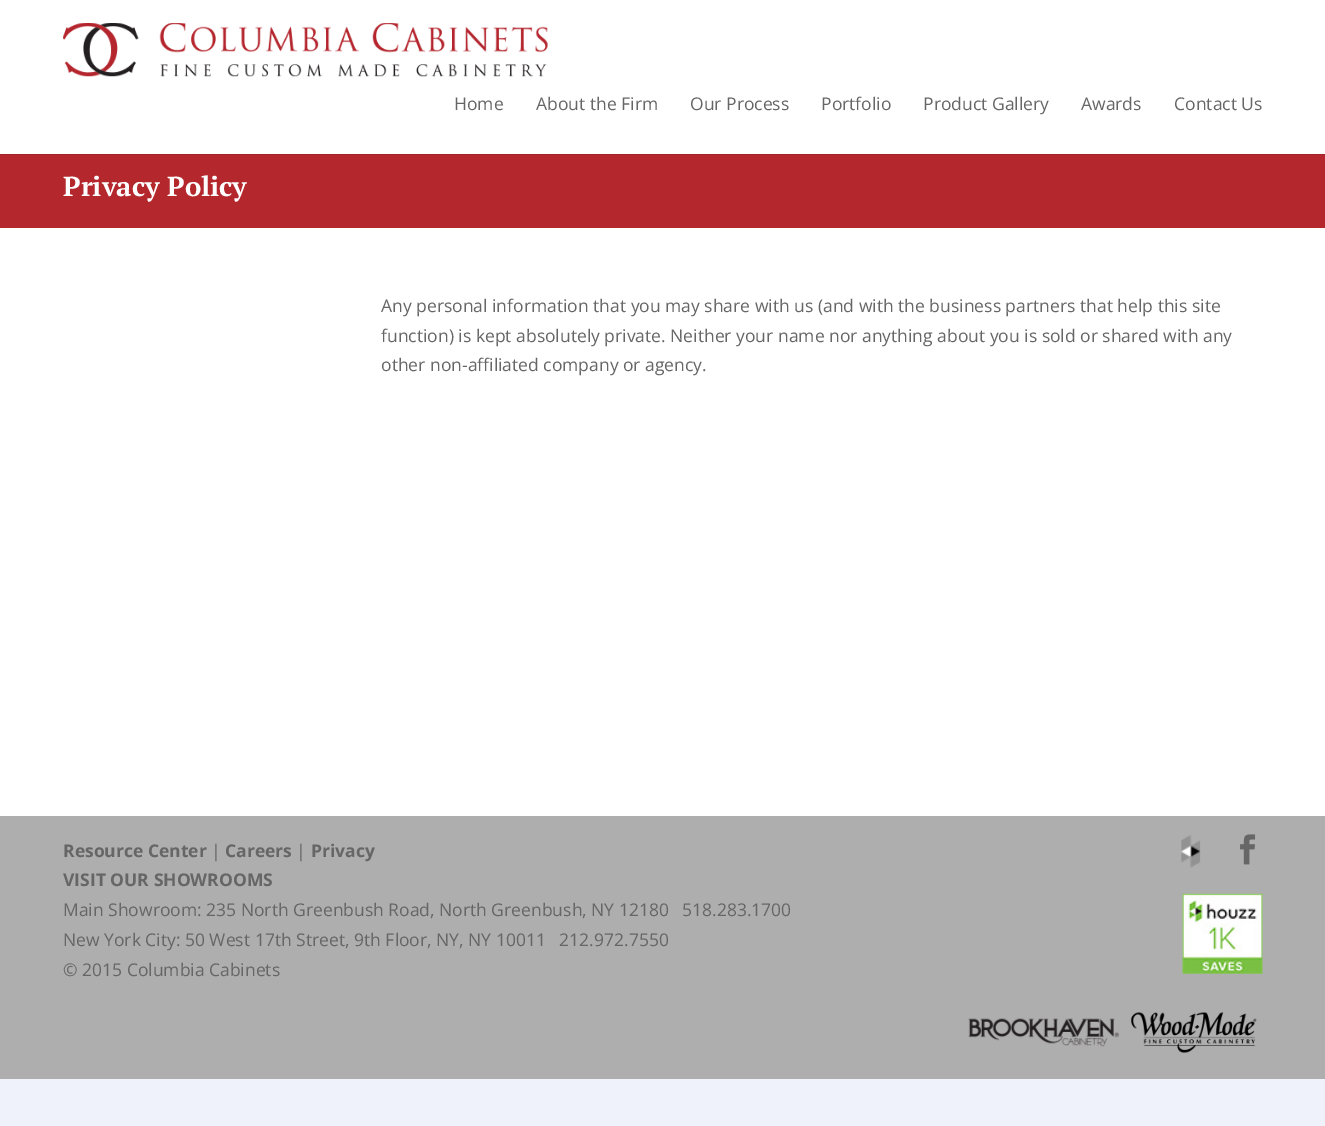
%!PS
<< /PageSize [1325 1126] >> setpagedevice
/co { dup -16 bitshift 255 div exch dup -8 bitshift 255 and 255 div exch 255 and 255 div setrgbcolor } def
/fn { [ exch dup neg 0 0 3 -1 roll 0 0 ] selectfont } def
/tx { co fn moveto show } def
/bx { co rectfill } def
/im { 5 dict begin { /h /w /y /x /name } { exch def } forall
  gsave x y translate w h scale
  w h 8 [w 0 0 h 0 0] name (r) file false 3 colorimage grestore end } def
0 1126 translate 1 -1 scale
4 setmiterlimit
0 0 1325 1126 16#EFF2FB bx
0 154 1325 1 16#A12329 bx
0 0 1325 154 16#FFFFFF bx
(media/1.raw) 63 23 485 54 im
0 155 1325 73 16#B3272D bx
0 228 1325 588 16#FFFFFF bx
0 816 1325 263 16#AEAEAE bx
(media/2.raw) 1181 835 20 33 im
(media/3.raw) 1240 834 16 31 im
(media/4.raw) 1182 893 81 81 im
(media/5.raw) 968 1018 151 29 im
(media/6.raw) 1131 1012 126 41 im
(Home) 454 110 /OpenSans-Regular 17.5 16#666666 tx
(About the Firm) 536 110 /OpenSans-Regular 17.5 16#666666 tx
(Our Process) 690 110 /OpenSans-Regular 17.5 16#666666 tx
(Portfolio) 821 110 /OpenSans-Regular 17.5 16#666666 tx
(Product Gallery) 923 110 /OpenSans-Regular 17.5 16#666666 tx
(Awards) 1081 110 /OpenSans-Regular 17.5 16#666666 tx
(Contact Us) 1174 110 /OpenSans-Regular 17.5 16#666666 tx
(Privacy Policy) 63 196 /PTSerif-Bold 27.5 16#FFFFFF tx
(Any personal information that you may share with us \(and with the business partners that help this site) 381 312 /OpenSans-Regular 17.5 16#666666 tx
(function\) is kept absolutely private. Neither your name nor anything about you is sold or shared with any) 381 342 /OpenSans-Regular 17.5 16#666666 tx
(other non-affiliated company or agency.) 381 371 /OpenSans-Regular 17.5 16#666666 tx
(Resource Center) 63 857 /OpenSans-Bold 17.5 16#666666 tx
(|) 211 857 /OpenSans-Regular 17.5 16#666666 tx
(Careers) 225 857 /OpenSans-Bold 17.5 16#666666 tx
(|) 296 857 /OpenSans-Regular 17.5 16#666666 tx
(Privacy) 311 857 /OpenSans-Bold 17.5 16#666666 tx
(VISIT OUR SHOWROOMS) 63 886 /OpenSans-Bold 17.5 16#666666 tx
(Main Showroom: 235 North Greenbush Road, North Greenbush, NY 12180) 63 916 /OpenSans-Regular 17.5 16#666666 tx
(518.283.1700) 682 916 /OpenSans-Regular 17.5 16#666666 tx
(New York City: 50 West 17th Street, 9th Floor, NY, NY 10011   212.972.7550) 63 946 /OpenSans-Regular 17.5 16#666666 tx
(© 2015 Columbia Cabinets) 63 976 /OpenSans-Regular 17.5 16#666666 tx
showpage
